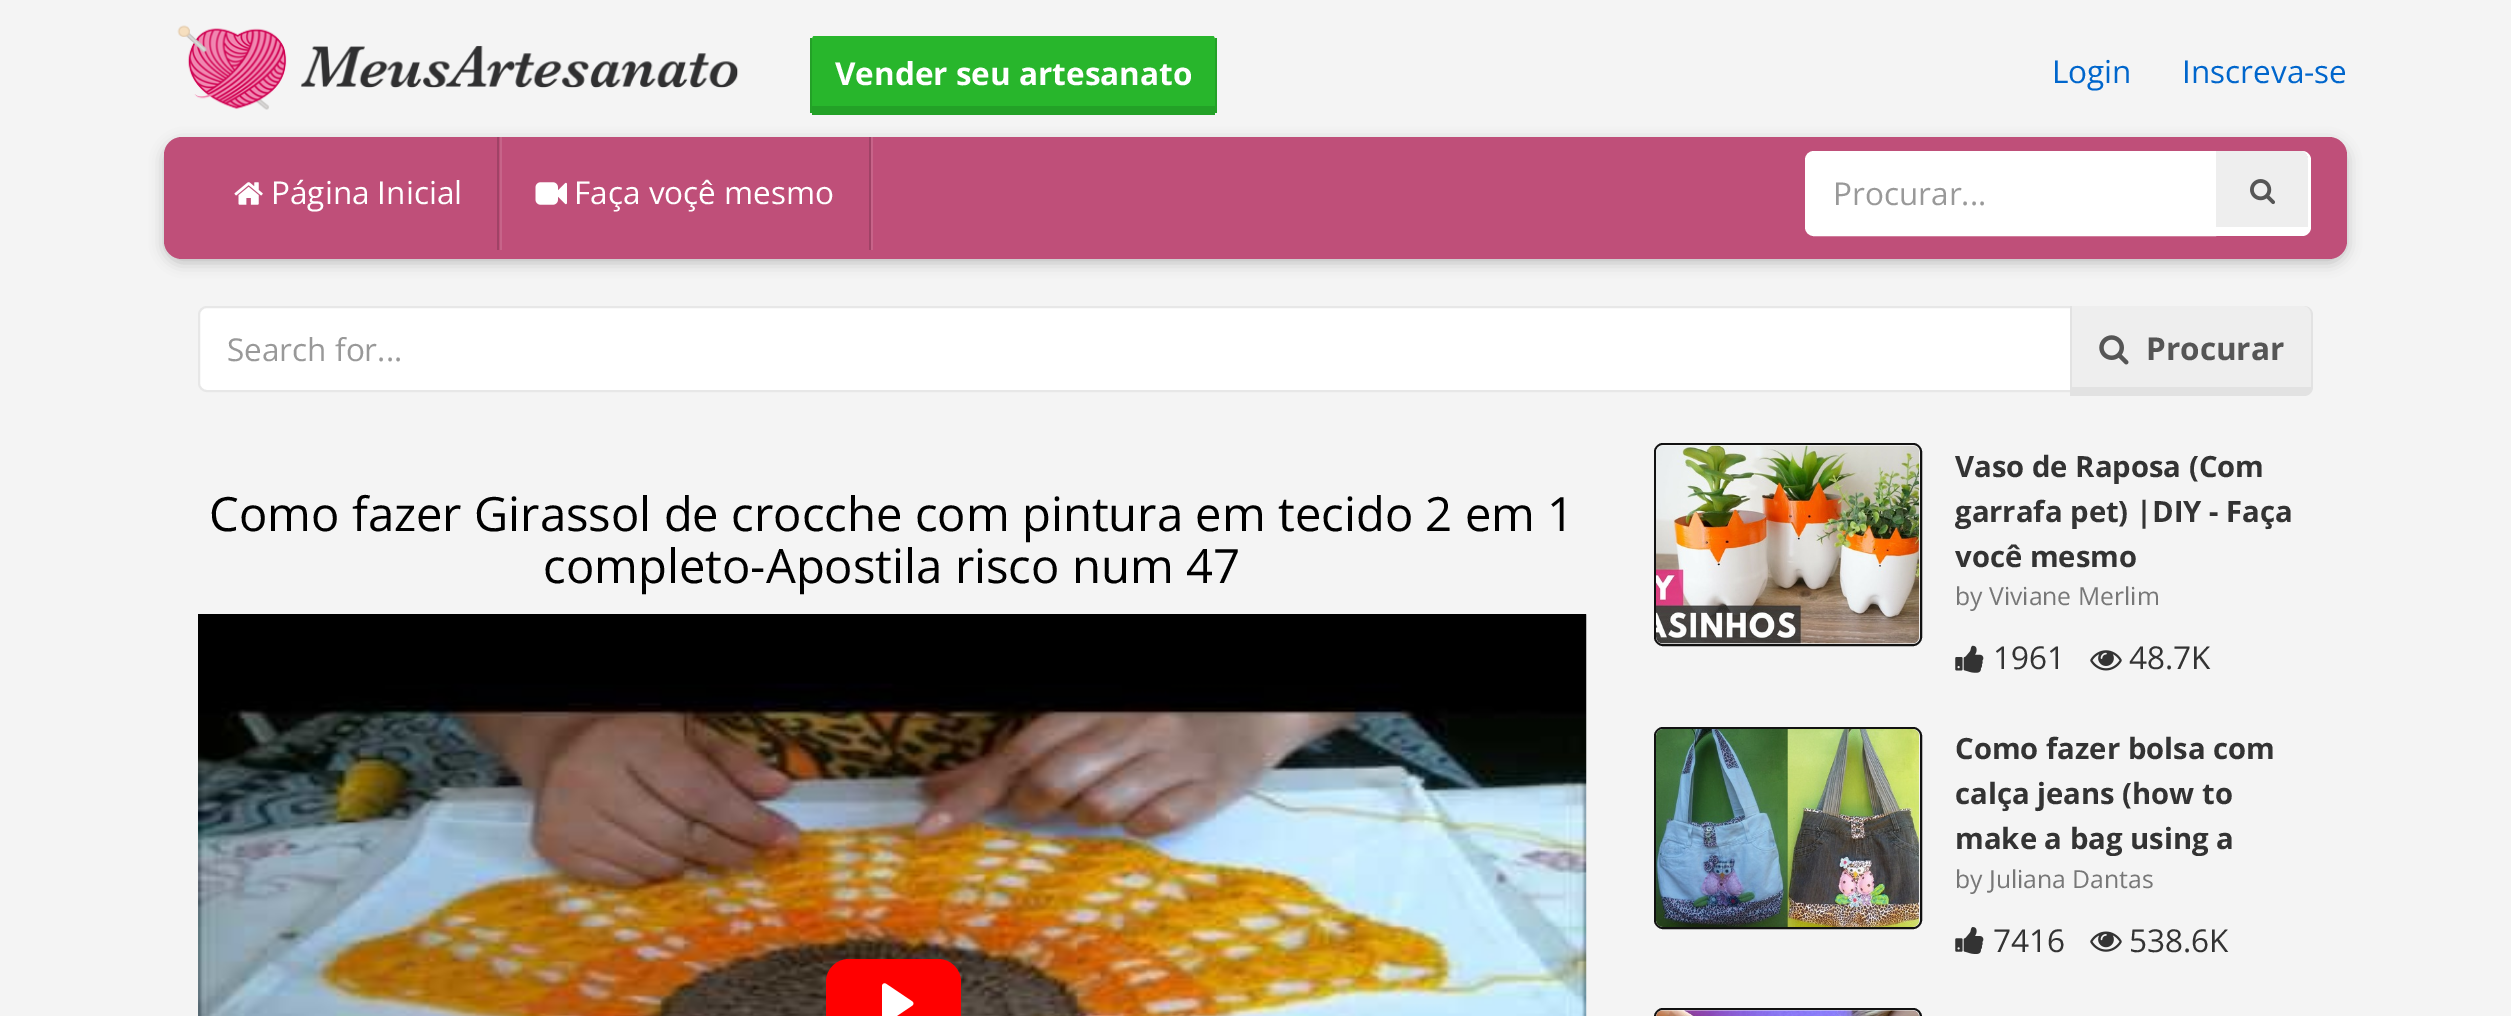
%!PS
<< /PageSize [2511 1016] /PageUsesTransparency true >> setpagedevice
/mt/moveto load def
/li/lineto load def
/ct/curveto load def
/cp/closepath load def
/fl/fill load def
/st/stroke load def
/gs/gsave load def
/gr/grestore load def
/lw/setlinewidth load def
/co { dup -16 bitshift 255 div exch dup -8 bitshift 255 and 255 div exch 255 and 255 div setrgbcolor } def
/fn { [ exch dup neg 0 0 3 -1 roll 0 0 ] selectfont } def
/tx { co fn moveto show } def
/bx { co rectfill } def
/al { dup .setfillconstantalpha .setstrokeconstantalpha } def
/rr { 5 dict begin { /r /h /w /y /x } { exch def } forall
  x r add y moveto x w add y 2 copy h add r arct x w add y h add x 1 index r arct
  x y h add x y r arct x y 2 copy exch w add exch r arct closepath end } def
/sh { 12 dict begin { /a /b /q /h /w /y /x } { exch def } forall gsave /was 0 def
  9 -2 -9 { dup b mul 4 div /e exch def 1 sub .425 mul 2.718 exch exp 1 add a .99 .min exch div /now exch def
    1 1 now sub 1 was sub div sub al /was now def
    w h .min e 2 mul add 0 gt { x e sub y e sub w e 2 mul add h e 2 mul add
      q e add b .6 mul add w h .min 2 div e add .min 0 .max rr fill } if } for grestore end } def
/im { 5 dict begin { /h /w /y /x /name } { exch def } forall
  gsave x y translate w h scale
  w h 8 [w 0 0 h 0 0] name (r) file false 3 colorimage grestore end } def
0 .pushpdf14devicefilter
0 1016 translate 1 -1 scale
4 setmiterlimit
0 0 2511 1016 16#F4F4F4 bx
(media/1.raw) 177 25 562 85 im
16#28B62C co
814 36 mt 1213 36 li 1214 36 1215 38 1215 40 ct 1215 106 li 812 106 li 812 40 li 812 38 813 36 814 36 ct cp fl
1215 38 2 75 16#23A127 bx
812 106 403 9 16#23A127 bx
810 38 2 75 16#23A127 bx
16#000000 co
164 142 2183 121 18 7 .22 sh
16#BF4F79 co
164 137 2183 122 18 rr fl
497 137 2 113 16#A04266 bx
(media/2.raw) 234 182 29 23 im
869 137 2 113 16#A04266 bx
500 137 2 113 16#C76489 bx
(media/3.raw) 535 182 32 23 im
871 137 2 113 16#C76489 bx
16#FFFFFF co
1814 152 mt 2215 152 li 2215 235 li 1814 235 li 1809.5 235 1806 231.5 1806 227 ct 1806 160 li 1806 155.5 1809.5 152 1814 152 ct cp gs fl gr
2 lw
st
16#EEEEEE co
2216 151 mt 2302 151 li 2305 151 2308 155 2308 160 ct 2308 227 li 2216 227 li cp fl
16#FFFFFF co
2214 151 mt 2302 151 li 2307 151 2311 155 2311 160 ct 2311 227 li 2311 232 2307 236 2302 236 ct 2214 236 li cp 2216 151 mt 2302 151 li 2305 151 2308 155 2308 160 ct 2308 227 li 2216 227 li cp eofill
(media/4.raw) 2250 179 25 26 im
207 307 mt 2071 307 li 2071 391 li 207 391 li 202.5 391 199 387.5 199 383 ct 199 315 li 199 310.5 202.5 307 207 307 ct cp gs fl gr
16#E7E7E7 co
st
16#EEEEEE co
2072 306 mt 2304 306 li 2308 306 2311 310 2311 315 ct 2311 387 li 2072 387 li cp fl
16#E2E2E2 co
2070 306 mt 2304 306 li 2309 306 2313 310 2313 315 ct 2313 387 li 2313 392 2309 396 2304 396 ct 2070 396 li cp 2072 306 mt 2304 306 li 2308 306 2311 310 2311 315 ct 2311 387 li 2072 387 li cp eofill
(media/5.raw) 2099 335 30 30 im
(media/6.raw) 198 614 1389 402 im
16#FF0000 co
826 959 135 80 23 rr fl
(media/7.raw) 882 983 32 33 im
16#111111 co
1655 444 266 201 8 rr st
(media/8.raw) 1656 445 264 199 im
(media/9.raw) 1955 645 29 28 im
(media/10.raw) 2090 650 32 21 im
1655 728 266 200 8 rr st
(media/11.raw) 1656 729 264 198 im
(media/12.raw) 1955 927 29 27 im
(media/13.raw) 2090 931 32 21 im
1655 1009 266 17 8 rr st
(media/14.raw) 1656 1010 263 6 im
(Vender seu artesanato) 835 85 /OpenSans-Bold 31.5 16#FFFFFF tx
(Login) 2052 83 /OpenSans-Regular 31.5 16#0066CC tx
(Inscreva-se) 2182 83 /OpenSans-Regular 31.5 16#0066CC tx
(Página Inicial) 271 204 /OpenSans-Regular 31.5 16#FFFFFF tx
(Faça voçê mesmo) 574 204 /OpenSans-Regular 31.5 16#FFFFFF tx
(Procurar...) 1833 205 /OpenSans-Regular 31.5 16#999999 tx
(Search for...) 227 361 /OpenSans-Regular 31.5 16#999999 tx
(Procurar) 2146 360 /OpenSans-Bold 31.5 16#555555 tx
(Como fazer Girassol de crocche com pintura em tecido 2 em 1) 209 531 /OpenSans-Regular 47.25 16#000000 tx
(completo-Apostila risco num 47) 543 583 /OpenSans-Regular 47.25 16#000000 tx
(Vaso de Raposa \(Com) 1955 477 /OpenSans-Bold 29.25 16#333333 tx
(garrafa pet\) |DIY - Faça) 1955 522 /OpenSans-Bold 29.25 16#333333 tx
(você mesmo) 1955 567 /OpenSans-Bold 29.25 16#333333 tx
(by Viviane Merlim) 1955 605 /OpenSans-Regular 24.75 16#777777 tx
(1961) 1993 669 /OpenSans-Regular 31.5 16#333333 tx
(48.7K) 2129 669 /OpenSans-Regular 31.5 16#333333 tx
(Como fazer bolsa com) 1955 759 /OpenSans-Bold 29.25 16#333333 tx
(calça jeans \(how to) 1955 804 /OpenSans-Bold 29.25 16#333333 tx
(make a bag using a) 1955 849 /OpenSans-Bold 29.25 16#333333 tx
(by Juliana Dantas) 1955 888 /OpenSans-Regular 24.75 16#777777 tx
(7416) 1993 952 /OpenSans-Regular 31.5 16#333333 tx
(538.6K) 2129 952 /OpenSans-Regular 31.5 16#333333 tx
.poppdf14devicefilter showpage
